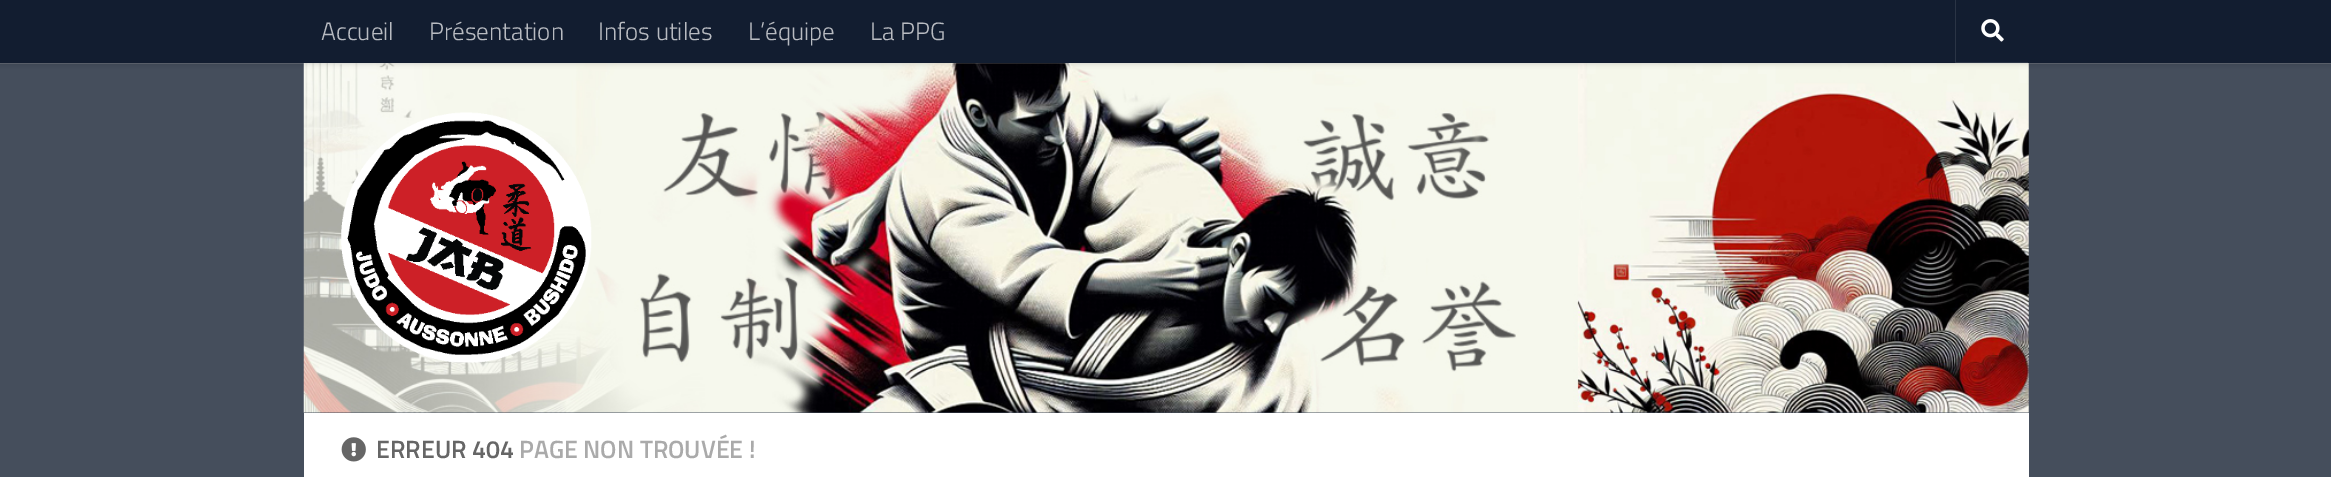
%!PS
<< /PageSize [2331 477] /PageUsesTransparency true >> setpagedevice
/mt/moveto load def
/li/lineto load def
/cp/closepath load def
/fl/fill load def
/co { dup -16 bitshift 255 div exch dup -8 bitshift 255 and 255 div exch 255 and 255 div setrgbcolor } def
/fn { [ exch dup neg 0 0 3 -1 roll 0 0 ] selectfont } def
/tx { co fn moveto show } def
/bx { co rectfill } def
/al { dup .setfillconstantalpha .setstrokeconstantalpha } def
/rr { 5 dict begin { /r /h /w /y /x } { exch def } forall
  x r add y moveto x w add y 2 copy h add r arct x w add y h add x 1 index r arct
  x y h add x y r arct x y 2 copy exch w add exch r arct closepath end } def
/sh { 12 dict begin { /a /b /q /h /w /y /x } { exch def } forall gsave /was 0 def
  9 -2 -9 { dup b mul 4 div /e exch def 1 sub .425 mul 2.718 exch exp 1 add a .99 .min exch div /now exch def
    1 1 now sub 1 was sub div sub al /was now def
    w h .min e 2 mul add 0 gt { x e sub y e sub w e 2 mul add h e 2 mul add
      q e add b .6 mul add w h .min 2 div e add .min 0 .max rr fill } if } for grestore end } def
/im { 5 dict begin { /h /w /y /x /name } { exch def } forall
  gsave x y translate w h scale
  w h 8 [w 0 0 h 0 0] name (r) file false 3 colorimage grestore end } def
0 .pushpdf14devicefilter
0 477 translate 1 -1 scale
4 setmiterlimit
0 0 2331 477 16#454E5C bx
(media/2.raw) 303 63 1726 350 im
0.15 al
0 63 2331 1 16#FFFFFF bx
1 al
16#000000 co
0 0 2331 63 0 3 .2 sh
0 0 2331 63 16#121D30 bx
16#2A3445 co
1955 0 mt 1955 63 li 2028 63 li 2028 62 li 1956 62 li 1956 0 li cp fl
(media/1.raw) 1981 19 23 23 im
(media/3.raw) 341 112 251 251 im
304 413 1725 64 16#FFFFFF bx
(media/4.raw) 341 437 25 25 im
(Accueil) 321 40 /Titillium-Light 25 16#B8BBC1 tx
(Présentation) 429 40 /Titillium-Light 25 16#B8BBC1 tx
(Infos utiles) 598 40 /Titillium-Light 25 16#B8BBC1 tx
(L’équipe) 748 40 /Titillium-Light 25 16#B8BBC1 tx
(La PPG) 870 40 /Titillium-Light 25 16#B8BBC1 tx
(ERREUR 404) 376 458 /Titillium-SemiBold 25 16#666666 tx
(PAGE NON TROUVÉE !) 519 458 /Titillium-SemiBold 25 16#AAAAAA tx
.poppdf14devicefilter showpage
